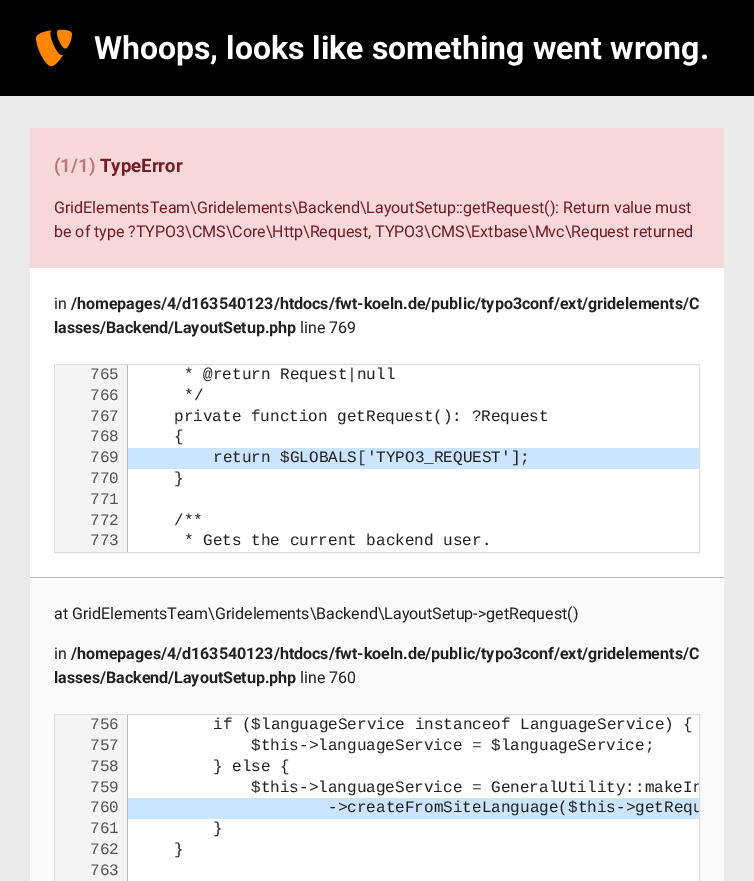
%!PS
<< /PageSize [754 881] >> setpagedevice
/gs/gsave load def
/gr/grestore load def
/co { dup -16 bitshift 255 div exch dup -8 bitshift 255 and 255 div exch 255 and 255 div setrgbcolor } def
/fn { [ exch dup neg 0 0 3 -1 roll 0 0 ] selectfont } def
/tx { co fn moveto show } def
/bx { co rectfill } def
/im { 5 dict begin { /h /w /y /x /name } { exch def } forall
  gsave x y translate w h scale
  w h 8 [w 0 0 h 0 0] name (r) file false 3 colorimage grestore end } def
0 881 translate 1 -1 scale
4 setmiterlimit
0 0 754 881 16#EAEAEA bx
0 0 754 96 16#000000 bx
(media/1.raw) 36 29 36 38 im
30 268 694 309 16#FFFFFF bx
30 128 694 140 16#F8D7DA bx
30 577 694 1 16#B9B9B9 bx
16#DFDFDF co
54.5 364.5 645 188 rectstroke
55 365 72 187 16#F4F4F4 bx
127 365 1 187 16#B9B9B9 bx
128 448 571 21 16#CCE5FF bx
30 578 694 303 16#FAFAFA bx
128 715 571 166 16#FFFFFF bx
16#DFDFDF co
54.5 714.5 645 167 rectstroke
55 715 72 166 16#F4F4F4 bx
127 715 1 166 16#B9B9B9 bx
128 798 571 21 16#CCE5FF bx
(Whoops, looks like something went wrong.) 94 59 /Roboto-Bold 32 16#FFFFFF tx
(\(1/1\)) 54 172 /Roboto-Bold 18.5 16#B57A7F tx
(TypeError) 100 172 /Roboto-Bold 18.5 16#721C24 tx
(GridElementsTeam\\Gridelements\\Backend\\LayoutSetup::getRequest\(\): Return value must) 54 213 /Roboto-Regular 16 16#721C24 tx
(be of type ?TYPO3\\CMS\\Core\\Http\\Request, TYPO3\\CMS\\Extbase\\Mvc\\Request returned) 54 237 /Roboto-Regular 16 16#721C24 tx
(in) 54 309 /Roboto-Regular 16 16#212121 tx
(/homepages/4/d163540123/htdocs/fwt-koeln.de/public/typo3conf/ext/gridelements/C) 71 309 /Roboto-Bold 16 16#212121 tx
(lasses/Backend/LayoutSetup.php) 54 333 /Roboto-Bold 16 16#212121 tx
(line 769) 300 333 /Roboto-Regular 16 16#212121 tx
(765) 90 379 /LiberationMono-Regular 16 16#515151 tx
(* @return Request|null) 184 379 /LiberationMono-Regular 16 16#212121 tx
(766) 90 400 /LiberationMono-Regular 16 16#515151 tx
(*/) 184 400 /LiberationMono-Regular 16 16#212121 tx
(767) 90 421 /LiberationMono-Regular 16 16#515151 tx
(private function getRequest\(\): ?Request) 174 421 /LiberationMono-Regular 16 16#212121 tx
(768) 90 441 /LiberationMono-Regular 16 16#515151 tx
({) 174 441 /LiberationMono-Regular 16 16#212121 tx
(769) 90 462 /LiberationMono-Regular 16 16#515151 tx
(return $GLOBALS['TYPO3_REQUEST'];) 213 462 /LiberationMono-Regular 16 16#212121 tx
(770) 90 483 /LiberationMono-Regular 16 16#515151 tx
(}) 174 483 /LiberationMono-Regular 16 16#212121 tx
(771) 90 504 /LiberationMono-Regular 16 16#515151 tx
(772) 90 525 /LiberationMono-Regular 16 16#515151 tx
(/**) 174 525 /LiberationMono-Regular 16 16#212121 tx
(773) 90 545 /LiberationMono-Regular 16 16#515151 tx
(* Gets the current backend user.) 184 545 /LiberationMono-Regular 16 16#212121 tx
(at GridElementsTeam\\Gridelements\\Backend\\LayoutSetup->getRequest\(\)) 54 619 /Roboto-Regular 16 16#212121 tx
(in) 54 659 /Roboto-Regular 16 16#212121 tx
(/homepages/4/d163540123/htdocs/fwt-koeln.de/public/typo3conf/ext/gridelements/C) 71 659 /Roboto-Bold 16 16#212121 tx
(lasses/Backend/LayoutSetup.php) 54 683 /Roboto-Bold 16 16#212121 tx
(line 760) 300 683 /Roboto-Regular 16 16#212121 tx
(756) 90 729 /LiberationMono-Regular 16 16#515151 tx
(if \($languageService instanceof LanguageService\) {) 213 729 /LiberationMono-Regular 16 16#212121 tx
(757) 90 750 /LiberationMono-Regular 16 16#515151 tx
($this->languageService = $languageService;) 251 750 /LiberationMono-Regular 16 16#212121 tx
(758) 90 771 /LiberationMono-Regular 16 16#515151 tx
(} else {) 213 771 /LiberationMono-Regular 16 16#212121 tx
(759) 90 792 /LiberationMono-Regular 16 16#515151 tx
gs
55 715 644 166 rectclip
($this->languageService = GeneralUtility::makeIn) 251 792 /LiberationMono-Regular 16 16#212121 tx
gr
(760) 90 812 /LiberationMono-Regular 16 16#515151 tx
gs
55 715 644 166 rectclip
(->createFromSiteLanguage\($this->getRequ) 328 812 /LiberationMono-Regular 16 16#212121 tx
gr
(761) 90 833 /LiberationMono-Regular 16 16#515151 tx
(}) 213 833 /LiberationMono-Regular 16 16#212121 tx
(762) 90 854 /LiberationMono-Regular 16 16#515151 tx
(}) 174 854 /LiberationMono-Regular 16 16#212121 tx
(763) 90 875 /LiberationMono-Regular 16 16#515151 tx
showpage
